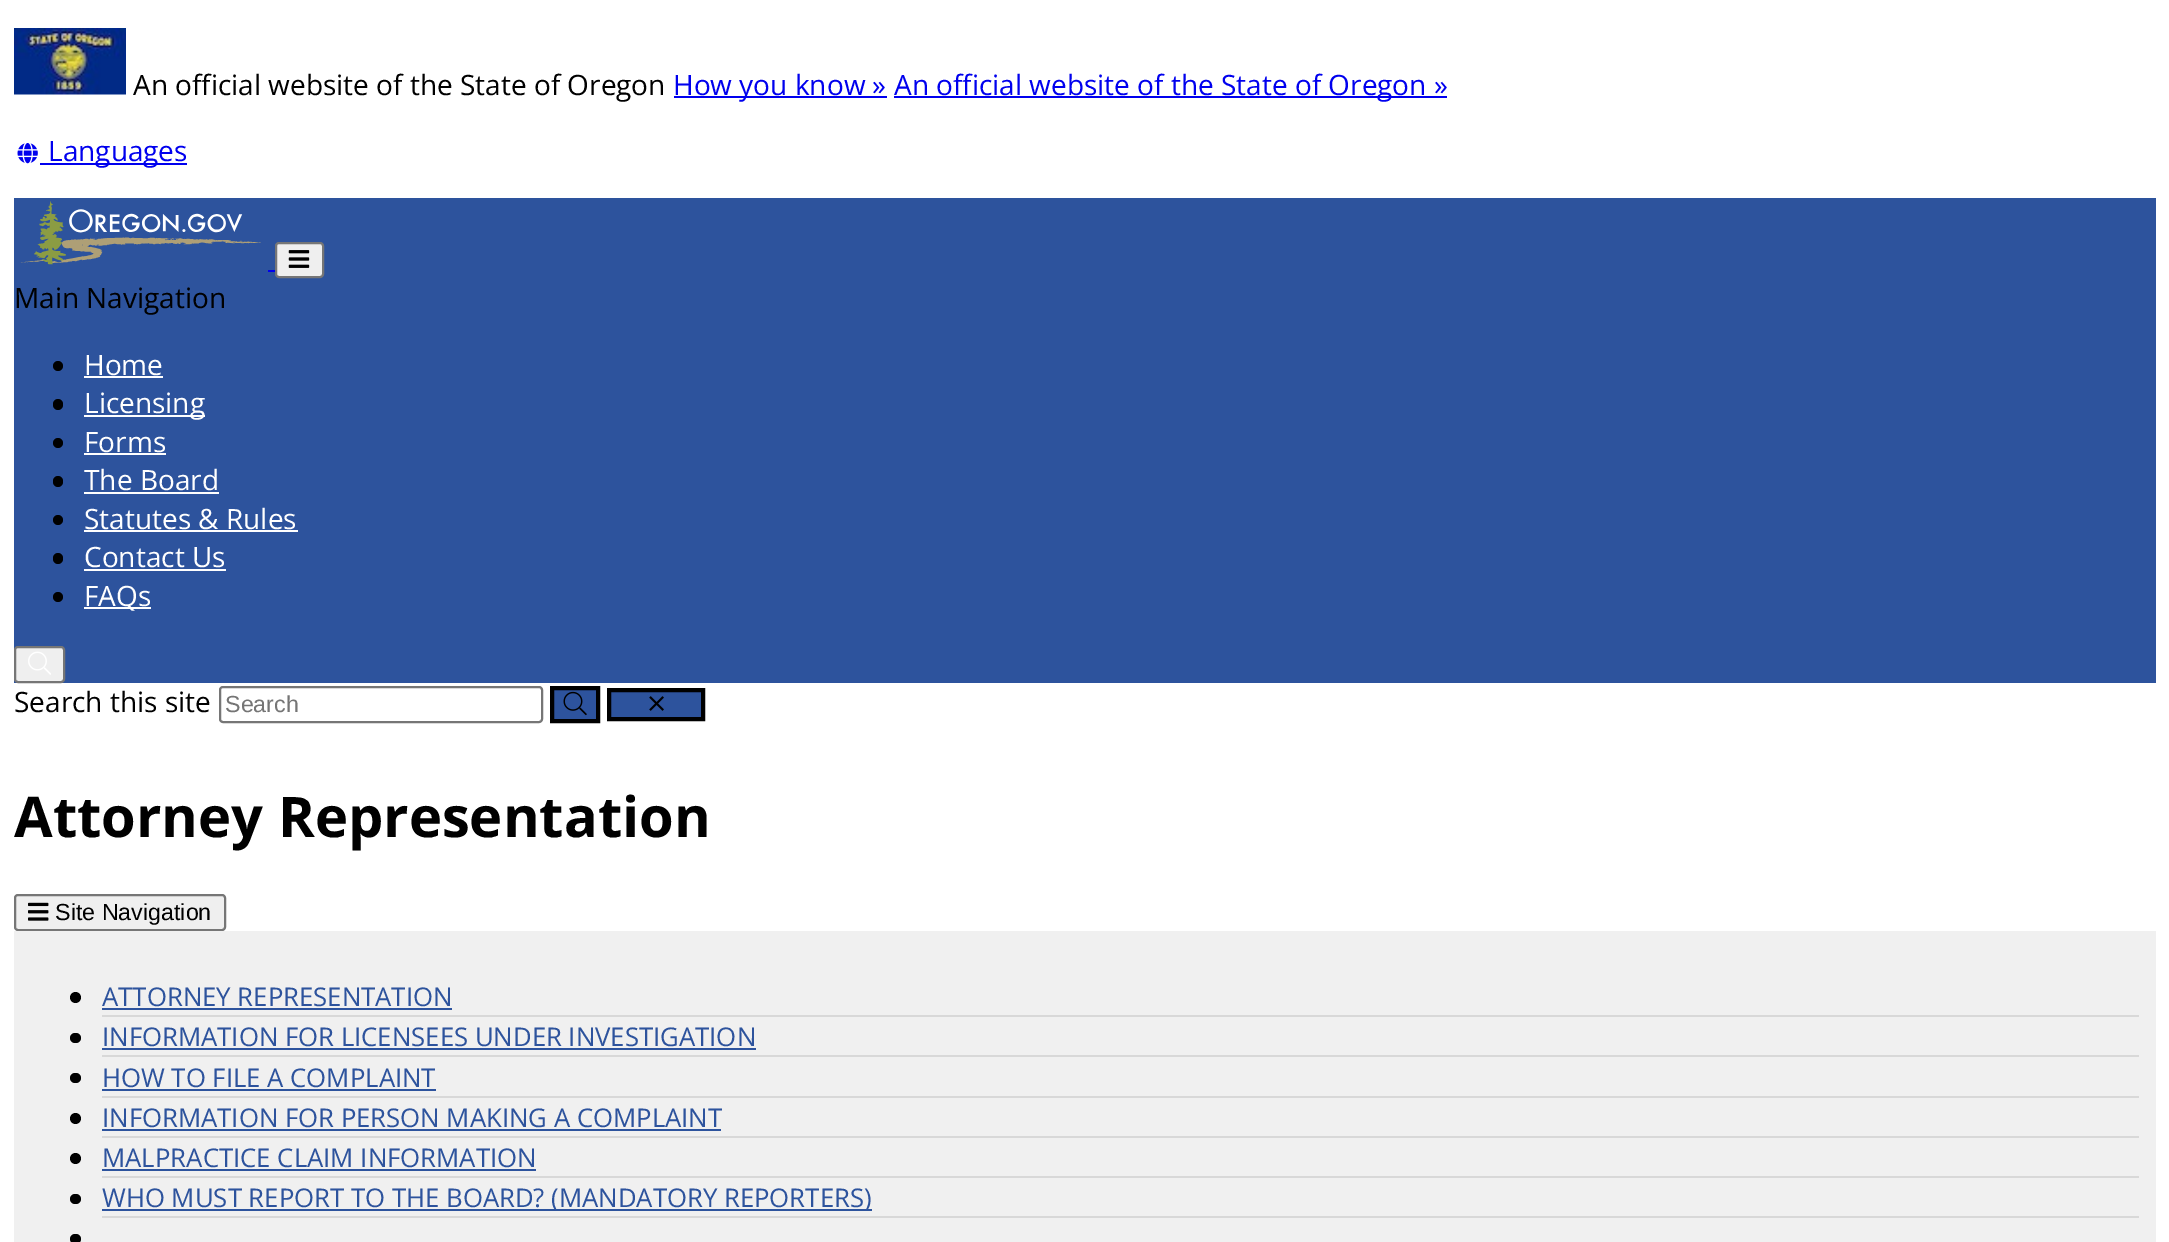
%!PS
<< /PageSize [2169 1242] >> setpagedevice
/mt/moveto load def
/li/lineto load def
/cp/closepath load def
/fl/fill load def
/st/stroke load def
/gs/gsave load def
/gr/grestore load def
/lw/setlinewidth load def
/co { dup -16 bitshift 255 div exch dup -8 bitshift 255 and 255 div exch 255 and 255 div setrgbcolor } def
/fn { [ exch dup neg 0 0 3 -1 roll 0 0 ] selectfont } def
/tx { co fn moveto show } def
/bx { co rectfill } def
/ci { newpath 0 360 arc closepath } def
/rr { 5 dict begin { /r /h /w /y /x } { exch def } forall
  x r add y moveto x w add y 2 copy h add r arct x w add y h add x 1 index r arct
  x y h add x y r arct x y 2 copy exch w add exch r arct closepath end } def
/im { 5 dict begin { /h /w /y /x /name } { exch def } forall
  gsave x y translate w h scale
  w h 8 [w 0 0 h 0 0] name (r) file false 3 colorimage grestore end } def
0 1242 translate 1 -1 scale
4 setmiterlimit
0 0 2169 1242 16#FFFFFF bx
(media/1.raw) 14 28 112 67 im
674 96 213 2 16#0000EE bx
894 96 553 2 16#0000EE bx
(media/2.raw) 17 143 21 21 im
40 163 147 2 16#0000EE bx
14 198 2142 485 16#2D539D bx
(media/3.raw) 20 201 241 64 im
268 270 7 2 16#0000EE bx
16#EFEFEF co
276 243 47 34 3 rr gs fl gr
16#767676 co
2 lw
st
(media/4.raw) 288 250 22 18 im
16#000000 co
58 366 5 ci fl
84 376 79 2 16#FFFFFF bx
16#000000 co
53 399 10 11 5 rr fl
84 415 121 2 16#FFFFFF bx
16#000000 co
58 443 5 ci fl
84 453 82 2 16#FFFFFF bx
16#000000 co
53 476 10 11 5 rr fl
84 492 135 2 16#FFFFFF bx
16#000000 co
58 520 5 ci fl
84 530 214 2 16#FFFFFF bx
16#000000 co
53 553 10 11 5 rr fl
84 569 142 2 16#FFFFFF bx
16#000000 co
58 597 5 ci fl
84 607 67 2 16#FFFFFF bx
16#EFEFEF co
15 647 49 35 3 rr gs fl gr
16#767676 co
st
(media/5.raw) 28 651 23 24 im
220 687 322 35 3 rr st
16#2D539D co
552 688 mt 598 688 li 598 721 li 552 721 li cp gs fl gr
16#000000 co
4 lw
st
(media/6.raw) 563 691 24 25 im
16#2D539D co
609 690 mt 703 690 li 703 719 li 609 719 li cp gs fl gr
16#000000 co
st
(media/7.raw) 649 696 15 15 im
16#EFEFEF co
15 895 210 35 3 rr gs fl gr
16#767676 co
2 lw
st
(media/8.raw) 28 902 21 19 im
14 931 2142 311 16#F0F0F0 bx
16#000000 co
75.5 997.5 5.5 ci fl
102 1008 350 2 16#2D539D bx
102 1015 2037 2 16#D8D8D8 bx
16#000000 co
70 1033 11 10 5 rr fl
102 1048 654 2 16#2D539D bx
102 1055 2037 2 16#D8D8D8 bx
16#000000 co
70 1073 11 10 5 rr fl
102 1089 334 2 16#2D539D bx
102 1096 2037 2 16#D8D8D8 bx
16#000000 co
75.5 1118.5 5.5 ci fl
102 1129 619 2 16#2D539D bx
102 1136 2037 2 16#D8D8D8 bx
16#000000 co
75.5 1158.5 5.5 ci fl
102 1169 434 2 16#2D539D bx
102 1176 2037 2 16#D8D8D8 bx
16#000000 co
70 1194 11 10 5 rr fl
102 1209 770 2 16#2D539D bx
102 1216 2037 2 16#D8D8D8 bx
16#000000 co
70 1234 11 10 5 rr fl
(An official website of the State of Oregon) 133 95 /OpenSans-Regular 28 16#000000 tx
(How you know ») 673 95 /OpenSans-Regular 28 16#0000EE tx
(An official website of the State of Oregon ») 894 95 /OpenSans-Regular 28 16#0000EE tx
(Languages) 48 161 /OpenSans-Regular 28 16#0000EE tx
(Main Navigation) 14 308 /OpenSans-Regular 28 16#000000 tx
(Home) 84 375 /OpenSans-Regular 28 16#FFFFFF tx
(Licensing) 84 413 /OpenSans-Regular 28 16#FFFFFF tx
(Forms) 84 452 /OpenSans-Regular 28 16#FFFFFF tx
(The Board) 84 490 /OpenSans-Regular 28 16#FFFFFF tx
(Statutes & Rules) 84 529 /OpenSans-Regular 28 16#FFFFFF tx
(Contact Us) 84 567 /OpenSans-Regular 28 16#FFFFFF tx
(FAQs) 84 606 /OpenSans-Regular 28 16#FFFFFF tx
(Search this site) 14 712 /OpenSans-Regular 28 16#000000 tx
(Search) 225 712 /LiberationSans-Regular 23.25 16#757575 tx
(Attorney Representation) 14 837 /OpenSans-Bold 56 16#000000 tx
(Site Navigation) 55 920 /LiberationSans-Regular 23.25 16#000000 tx
(ATTORNEY REPRESENTATION) 102 1006 /OpenSans-Regular 25.75 16#2D539D tx
(INFORMATION FOR LICENSEES UNDER INVESTIGATION) 102 1046 /OpenSans-Regular 25.75 16#2D539D tx
(HOW TO FILE A COMPLAINT) 102 1087 /OpenSans-Regular 25.75 16#2D539D tx
(INFORMATION FOR PERSON MAKING A COMPLAINT) 102 1127 /OpenSans-Regular 25.75 16#2D539D tx
(MALPRACTICE CLAIM INFORMATION) 102 1167 /OpenSans-Regular 25.75 16#2D539D tx
(WHO MUST REPORT TO THE BOARD? \(MANDATORY REPORTERS\)) 102 1207 /OpenSans-Regular 25.75 16#2D539D tx
showpage
